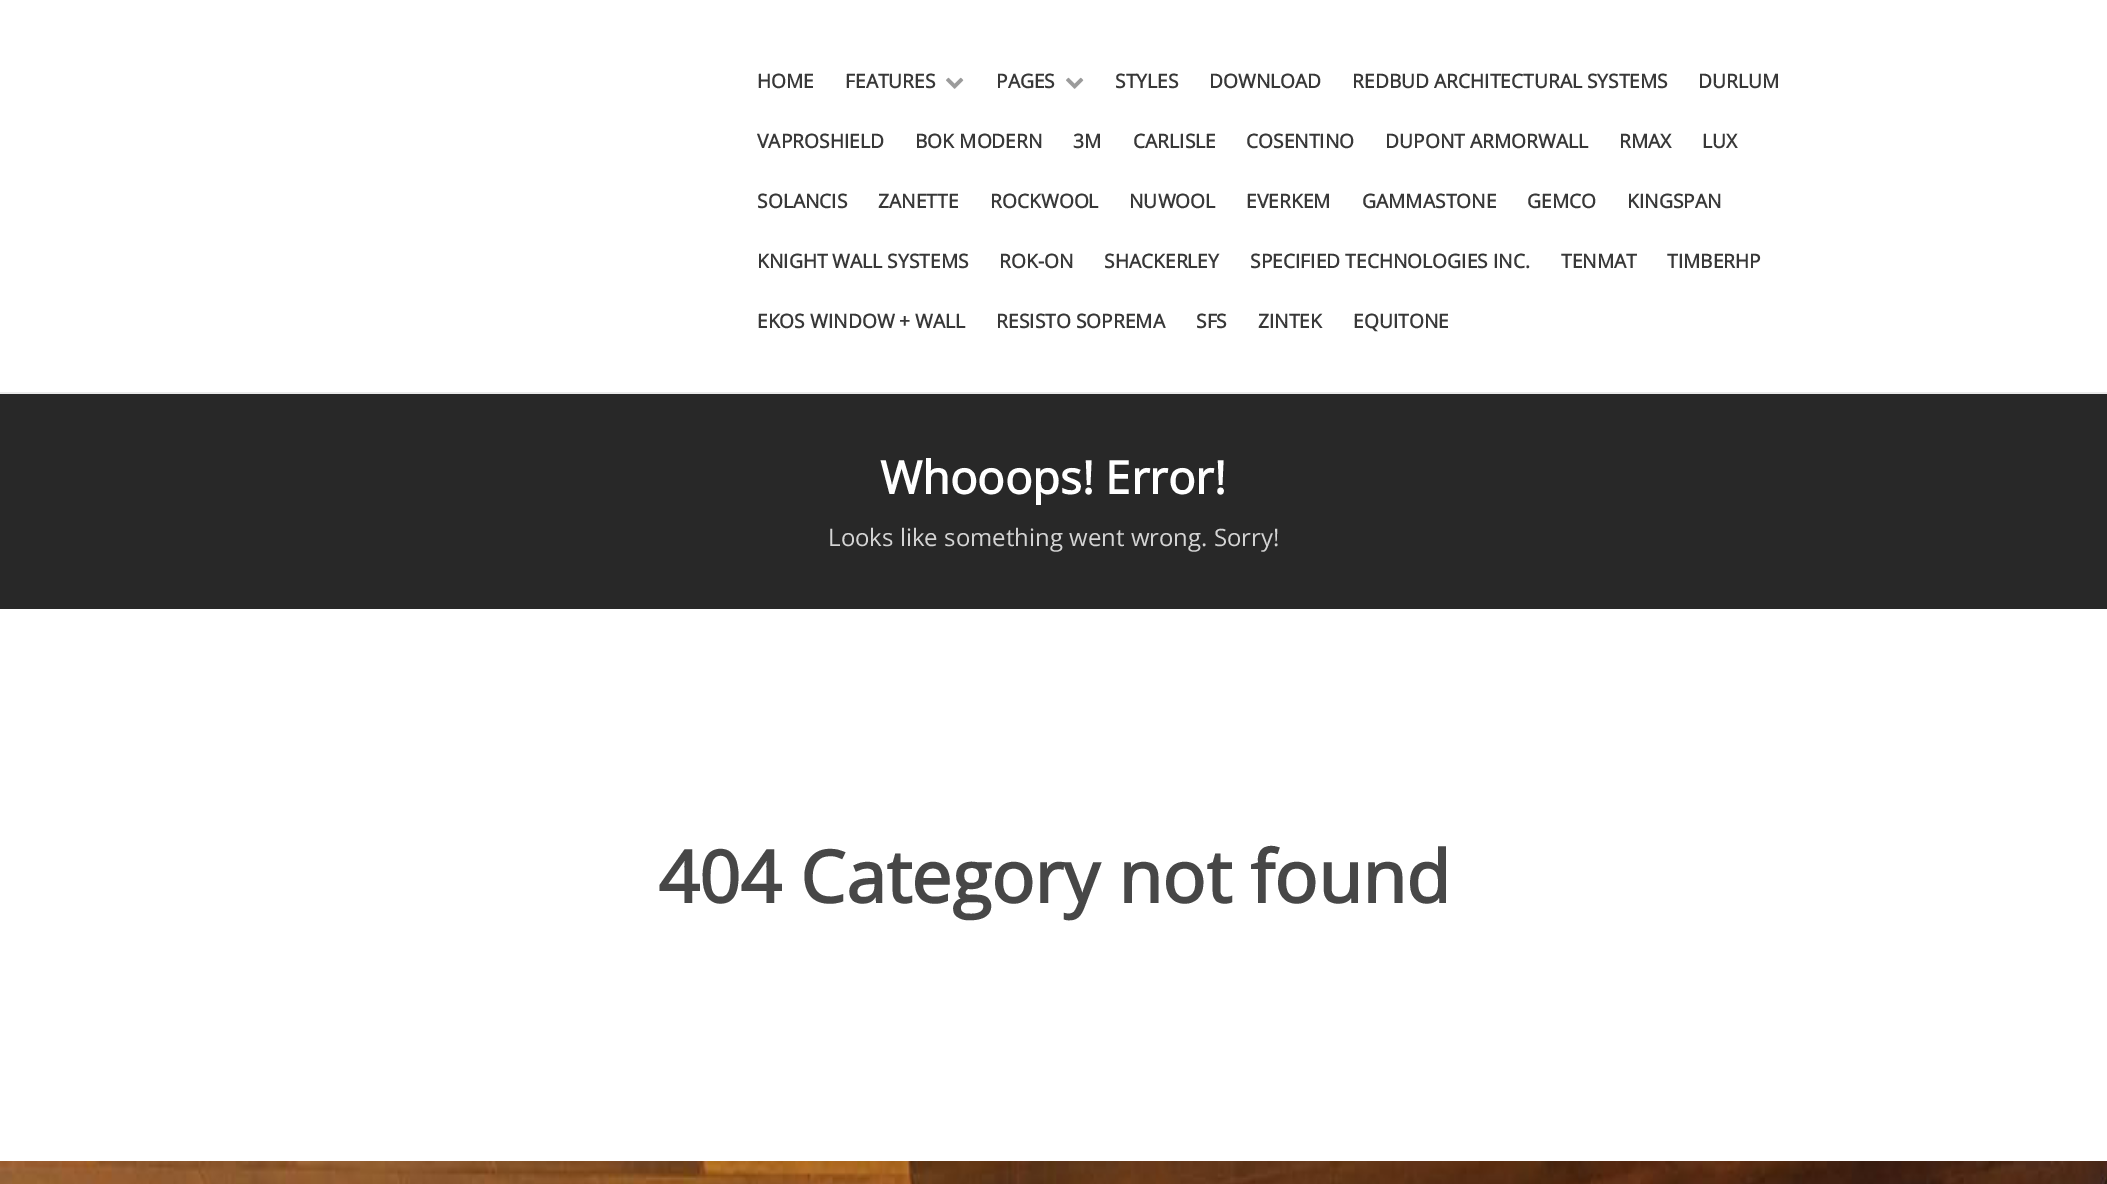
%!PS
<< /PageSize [2107 1184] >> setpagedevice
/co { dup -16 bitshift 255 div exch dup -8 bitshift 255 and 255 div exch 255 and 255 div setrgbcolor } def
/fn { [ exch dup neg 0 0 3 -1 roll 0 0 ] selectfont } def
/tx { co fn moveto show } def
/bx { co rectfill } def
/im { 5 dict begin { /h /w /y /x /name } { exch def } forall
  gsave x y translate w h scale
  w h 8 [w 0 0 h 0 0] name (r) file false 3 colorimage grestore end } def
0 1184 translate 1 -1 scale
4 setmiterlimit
0 0 2107 1184 16#FFFFFF bx
0 392 2107 2 16#EBEBEB bx
(media/1.raw) 946 77 18 12 im
(media/1.raw) 1066 77 18 12 im
0 394 2107 215 16#282828 bx
(media/2.raw) 0 1161 2107 23 im
(HOME) 757 88 /OpenSans-Bold 19.25 16#383838 tx
(FEATURES) 845 88 /OpenSans-Bold 19.25 16#383838 tx
(PAGES) 996 88 /OpenSans-Bold 19.25 16#383838 tx
(STYLES) 1115 88 /OpenSans-Bold 19.25 16#383838 tx
(DOWNLOAD) 1209 88 /OpenSans-Bold 19.25 16#383838 tx
(REDBUD ARCHITECTURAL SYSTEMS) 1352 88 /OpenSans-Bold 19.25 16#383838 tx
(DURLUM) 1698 88 /OpenSans-Bold 19.25 16#383838 tx
(VAPROSHIELD) 757 148 /OpenSans-Bold 19.25 16#383838 tx
(BOK MODERN) 915 148 /OpenSans-Bold 19.25 16#383838 tx
(3M) 1073 148 /OpenSans-Bold 19.25 16#383838 tx
(CARLISLE) 1133 148 /OpenSans-Bold 19.25 16#383838 tx
(COSENTINO) 1246 148 /OpenSans-Bold 19.25 16#383838 tx
(DUPONT ARMORWALL) 1385 148 /OpenSans-Bold 19.25 16#383838 tx
(RMAX) 1619 148 /OpenSans-Bold 19.25 16#383838 tx
(LUX) 1702 148 /OpenSans-Bold 19.25 16#383838 tx
(SOLANCIS) 757 208 /OpenSans-Bold 19.25 16#383838 tx
(ZANETTE) 878 208 /OpenSans-Bold 19.25 16#383838 tx
(ROCKWOOL) 990 208 /OpenSans-Bold 19.25 16#383838 tx
(NUWOOL) 1129 208 /OpenSans-Bold 19.25 16#383838 tx
(EVERKEM) 1246 208 /OpenSans-Bold 19.25 16#383838 tx
(GAMMASTONE) 1362 208 /OpenSans-Bold 19.25 16#383838 tx
(GEMCO) 1527 208 /OpenSans-Bold 19.25 16#383838 tx
(KINGSPAN) 1627 208 /OpenSans-Bold 19.25 16#383838 tx
(KNIGHT WALL SYSTEMS) 757 268 /OpenSans-Bold 19.25 16#383838 tx
(ROK-ON) 999 268 /OpenSans-Bold 19.25 16#383838 tx
(SHACKERLEY) 1104 268 /OpenSans-Bold 19.25 16#383838 tx
(SPECIFIED TECHNOLOGIES INC.) 1250 268 /OpenSans-Bold 19.25 16#383838 tx
(TENMAT) 1561 268 /OpenSans-Bold 19.25 16#383838 tx
(TIMBERHP) 1667 268 /OpenSans-Bold 19.25 16#383838 tx
(EKOS WINDOW + WALL) 757 328 /OpenSans-Bold 19.25 16#383838 tx
(RESISTO SOPREMA) 996 328 /OpenSans-Bold 19.25 16#383838 tx
(SFS) 1196 328 /OpenSans-Bold 19.25 16#383838 tx
(ZINTEK) 1258 328 /OpenSans-Bold 19.25 16#383838 tx
(EQUITONE) 1353 328 /OpenSans-Bold 19.25 16#383838 tx
(Whooops! Error!) 880 494 /OpenSans-Bold 45.5 16#FFFFFF tx
(Looks like something went wrong. Sorry!) 828 546 /OpenSans-Regular 24 16#D4D4D4 tx
(404 Category not found) 658 903 /OpenSans-Bold 72 16#474747 tx
showpage
